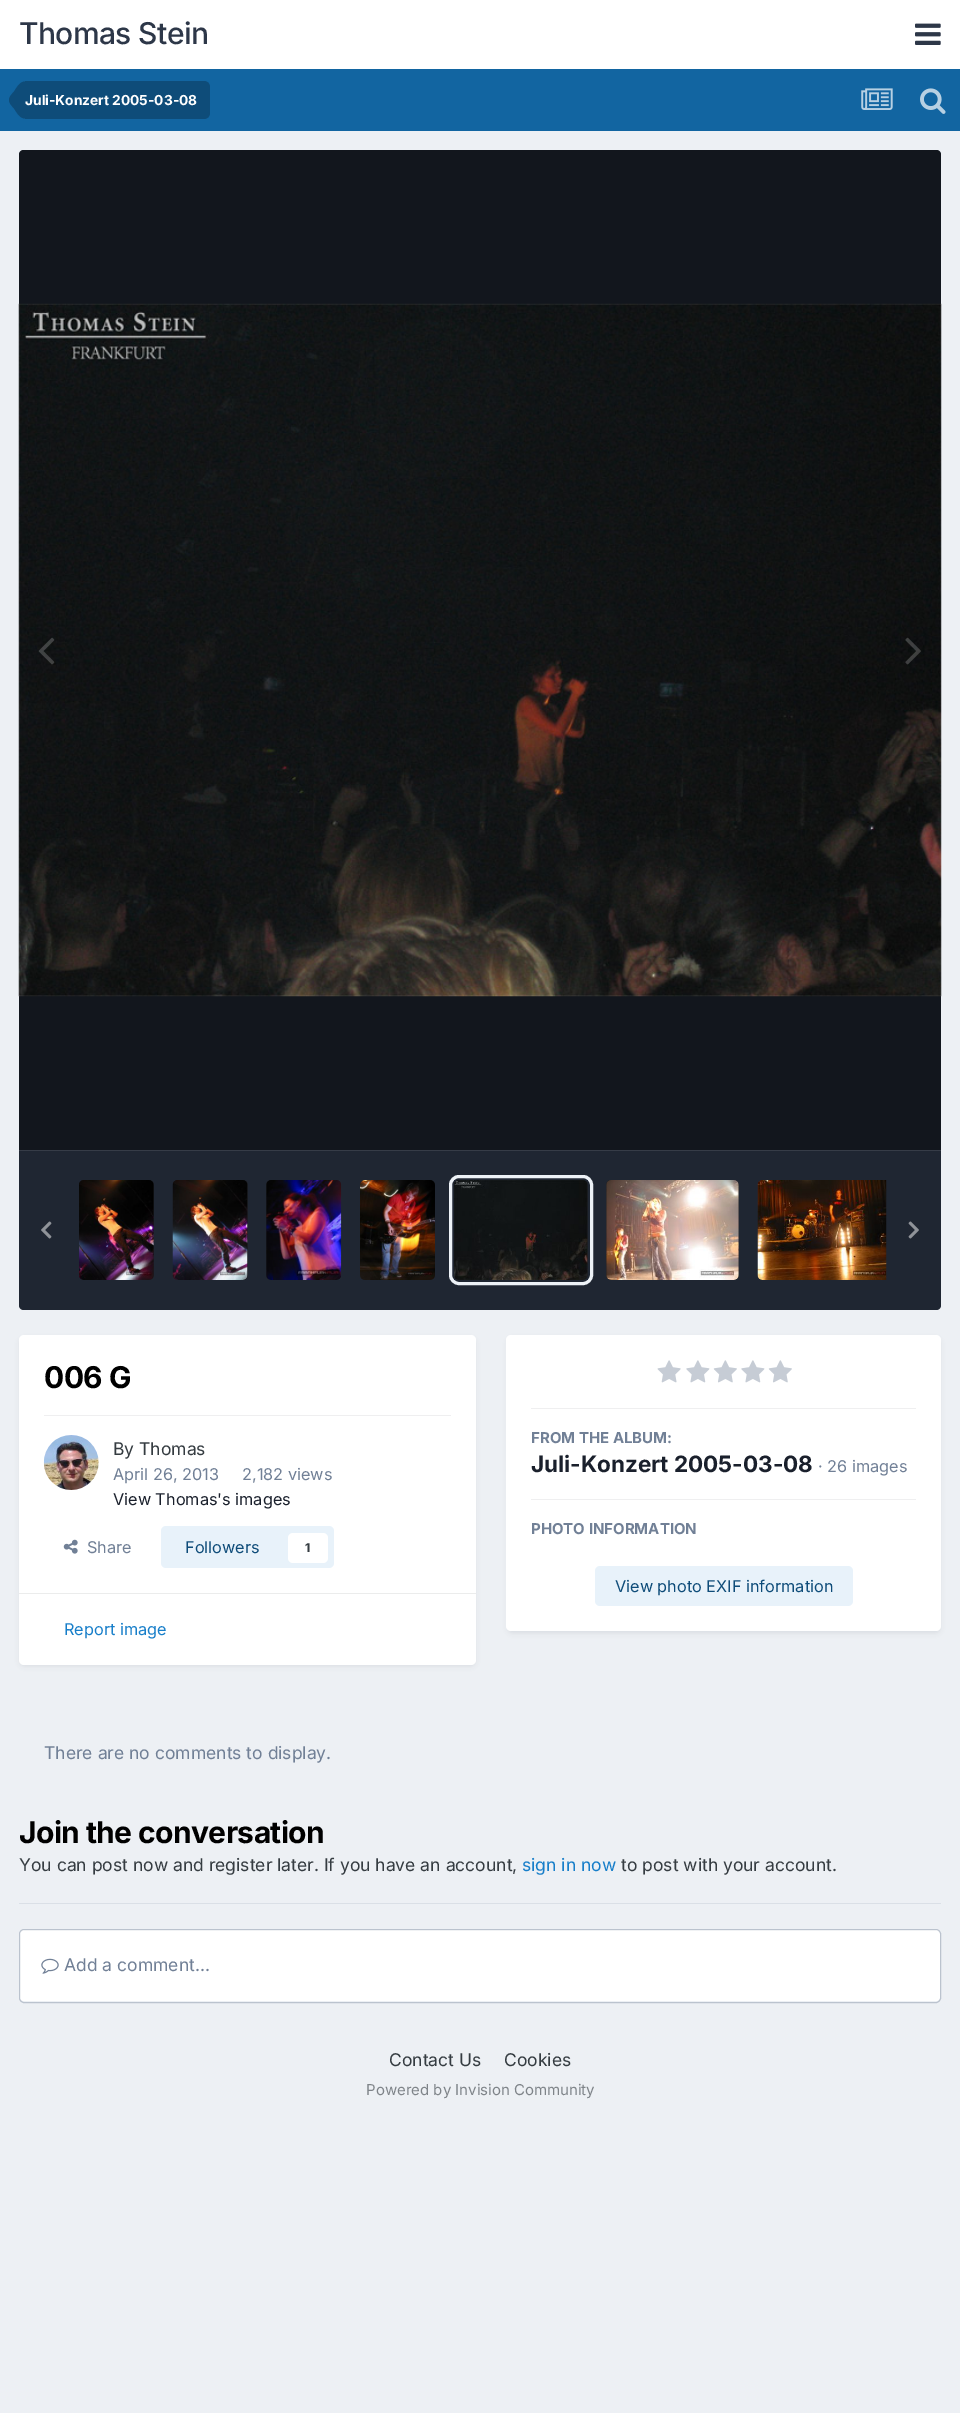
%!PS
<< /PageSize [960 2413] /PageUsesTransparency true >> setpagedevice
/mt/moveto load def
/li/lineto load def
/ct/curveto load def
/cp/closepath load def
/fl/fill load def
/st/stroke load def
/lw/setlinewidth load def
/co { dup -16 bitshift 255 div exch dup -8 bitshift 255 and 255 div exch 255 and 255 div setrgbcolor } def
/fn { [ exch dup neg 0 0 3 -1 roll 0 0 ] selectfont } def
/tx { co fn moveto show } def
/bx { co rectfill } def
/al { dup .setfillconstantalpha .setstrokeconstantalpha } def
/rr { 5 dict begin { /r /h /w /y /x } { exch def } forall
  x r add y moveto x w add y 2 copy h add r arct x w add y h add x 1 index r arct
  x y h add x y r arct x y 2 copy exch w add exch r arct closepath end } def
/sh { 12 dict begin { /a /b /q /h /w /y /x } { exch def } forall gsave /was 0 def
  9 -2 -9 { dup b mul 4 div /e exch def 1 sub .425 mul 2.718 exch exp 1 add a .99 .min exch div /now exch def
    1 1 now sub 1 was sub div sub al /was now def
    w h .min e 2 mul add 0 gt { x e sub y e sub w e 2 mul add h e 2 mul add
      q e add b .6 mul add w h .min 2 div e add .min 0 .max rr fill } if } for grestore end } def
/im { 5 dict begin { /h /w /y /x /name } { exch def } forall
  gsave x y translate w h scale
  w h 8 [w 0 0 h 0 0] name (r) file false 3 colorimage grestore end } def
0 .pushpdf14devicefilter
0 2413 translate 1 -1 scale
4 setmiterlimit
0 0 960 2413 16#EDF0F4 bx
0 0 960 69 16#FFFFFF bx
(media/1.raw) 915 23 26 22 im
0 69 960 62 16#1265A1 bx
16#0E4C79 co
25 81 mt 204 81 li 207.5 81 210 83.5 210 87 ct 210 113 li 210 116.5 207.5 119 204 119 ct 25 119 li cp fl
25 100 mt 25 118.5 li 19.5 118.5 16.5 112 14 108.5 ct 12 106 9 103.5 9 100 ct cp 25 100 mt 9 100 li 9 96.5 12 94 14 91.5 ct 16.5 88 19.5 81.5 25 81.5 ct cp fl
(media/2.raw) 861 88 32 22 im
(media/3.raw) 920 88 26 26 im
16#2D3748 co
24 150 mt 936 150 li 939 150 941 152 941 155 ct 941 1150 li 19 1150 li 19 155 li 19 152 21 150 24 150 ct cp fl
0.6 al
16#000000 co
24 150 mt 936 150 li 939 150 941 152 941 155 ct 941 1150 li 19 1150 li 19 155 li 19 152 21 150 24 150 ct cp fl
1 al
(media/4.raw) 18 303 924 694 im
(media/5.raw) 38 637 17 28 im
(media/6.raw) 905 637 16 28 im
16#2D3748 co
19 1150 mt 941 1150 li 941 1305 li 941 1308 939 1310 936 1310 ct 24 1310 li 21 1310 19 1308 19 1305 ct cp fl
0.3 al
16#000000 co
19 1150 mt 941 1150 li 941 1305 li 941 1308 939 1310 936 1310 ct 24 1310 li 21 1310 19 1308 19 1305 ct cp fl
1 al
19 1150 922 1 16#363C47 bx
16#141414 co
79 1180 75 100 5 rr fl
0.3 al
16#2D3748 co
79 1180 75 100 5 rr fl
1 al
(media/7.raw) 79 1180 75 100 im
16#141414 co
173 1180 75 100 5 rr fl
0.3 al
16#2D3748 co
173 1180 75 100 5 rr fl
1 al
(media/8.raw) 172 1180 76 100 im
16#141414 co
266 1180 75 100 5 rr fl
0.3 al
16#2D3748 co
266 1180 75 100 5 rr fl
1 al
(media/9.raw) 266 1180 76 100 im
(media/10.raw) 360 1180 75 100 im
16#141414 co
454 1180 134 100 5 rr fl
0.3 al
16#2D3748 co
454 1180 134 100 5 rr fl
1 al
16#EDF2F7 co
3 lw
450.5 1176.5 141 107 8.5 rr st
(media/11.raw) 454 1180 134 100 im
16#141414 co
606 1180 133 100 5 rr fl
0.3 al
16#2D3748 co
606 1180 133 100 5 rr fl
1 al
(media/12.raw) 606 1180 133 100 im
(media/13.raw) 757 1180 130 100 im
(media/14.raw) 41 1221 11 18 im
(media/15.raw) 908 1221 11 18 im
20 1339 455 327 4 2.5 .1 sh
16#FFFFFF co
19 1335 457 330 5 rr fl
44 1415 407 1 16#EFEFF0 bx
(media/16.raw) 43 1435 56 55 im
(media/17.raw) 63 1539 15 15 im
16#E8F2FA co
161 1526 173 42 5 rr fl
16#FFFFFF co
288 1533 40 30 5 rr fl
19 1593 457 1 16#EBECEC bx
16#2D3748 co
508 1339 432 294 4 2.5 .1 sh
16#FFFFFF co
506 1335 435 296 5 rr fl
(media/18.raw) 657 1360 24 23 im
(media/19.raw) 686 1360 24 23 im
(media/20.raw) 713 1360 24 23 im
(media/19.raw) 741 1360 24 23 im
(media/20.raw) 768 1360 24 23 im
531 1408 385 1 16#EFEFF0 bx
531 1499 385 1 16#EFEFF0 bx
16#E8F2FA co
595 1566 258 40 5 rr fl
19 1903 922 1 16#DADFE6 bx
16#FFFFFF co
20 1930 920 71 4 rr fl
0.4 al
16#718096 co
1 lw
19.5 1929.5 921 73 4.5 rr st
1 al
(media/21.raw) 41 1958 18 16 im
/Inter-Medium 30 fn
16#2D3748 co
19 44 mt -.6 0 (Thomas Stein) ashow
(Juli-Konzert 2005-03-08) 25 105 /Inter-Bold 13.75 16#FFFFFF tx
/Inter-Bold 30 fn
16#000000 co
44 1388 mt -.6 0 (006 G) ashow
(By Thomas) 113 1455 /Inter-Regular 17.5 16#353C41 tx
(April 26, 2013) 113 1480 /Inter-Regular 16.25 16#718096 tx
(2,182 views) 242 1480 /Inter-Regular 16.25 16#718096 tx
(View Thomas's images) 113 1505 /Inter-Regular 16.25 16#1A202C tx
(Share) 87 1553 /Inter-Regular 16.25 16#718096 tx
(Followers) 185 1553 /Inter-Regular 16.25 16#0E4C79 tx
(1) 305 1552 /Inter-Bold 12 16#353C41 tx
(Report image) 64 1635 /Inter-Regular 16.25 16#177EC9 tx
(FROM THE ALBUM:) 531 1443 /Inter-Bold 15 16#718096 tx
(Juli-Konzert 2005-03-08) 531 1472 /Inter-Bold 22.5 16#1A202C tx
(· 26 images) 818 1472 /Inter-Regular 16.25 16#718096 tx
(PHOTO INFORMATION) 531 1534 /Inter-Bold 15 16#718096 tx
(View photo EXIF information) 615 1592 /Inter-Regular 16.25 16#0E4C79 tx
(There are no comments to display.) 44 1759 /Inter-Regular 17.5 16#718096 tx
/Inter-Bold 30 fn
16#000000 co
19 1843 mt -.6 0 (Join the conversation) ashow
(You can post now and register later. If you have an account,) 19 1871 /Inter-Regular 17.5 16#353C41 tx
(sign in now) 522 1871 /Inter-Regular 17.5 16#177EC9 tx
(to post with your account.) 621 1871 /Inter-Regular 17.5 16#353C41 tx
(Add a comment...) 64 1971 /Inter-Regular 17.5 16#718096 tx
(Contact Us) 389 2066 /Inter-Regular 17.5 16#353C41 tx
(Cookies) 504 2066 /Inter-Regular 17.5 16#353C41 tx
(Powered by Invision Community) 366 2095 /Inter-Regular 15 16#7F8489 tx
.poppdf14devicefilter showpage
